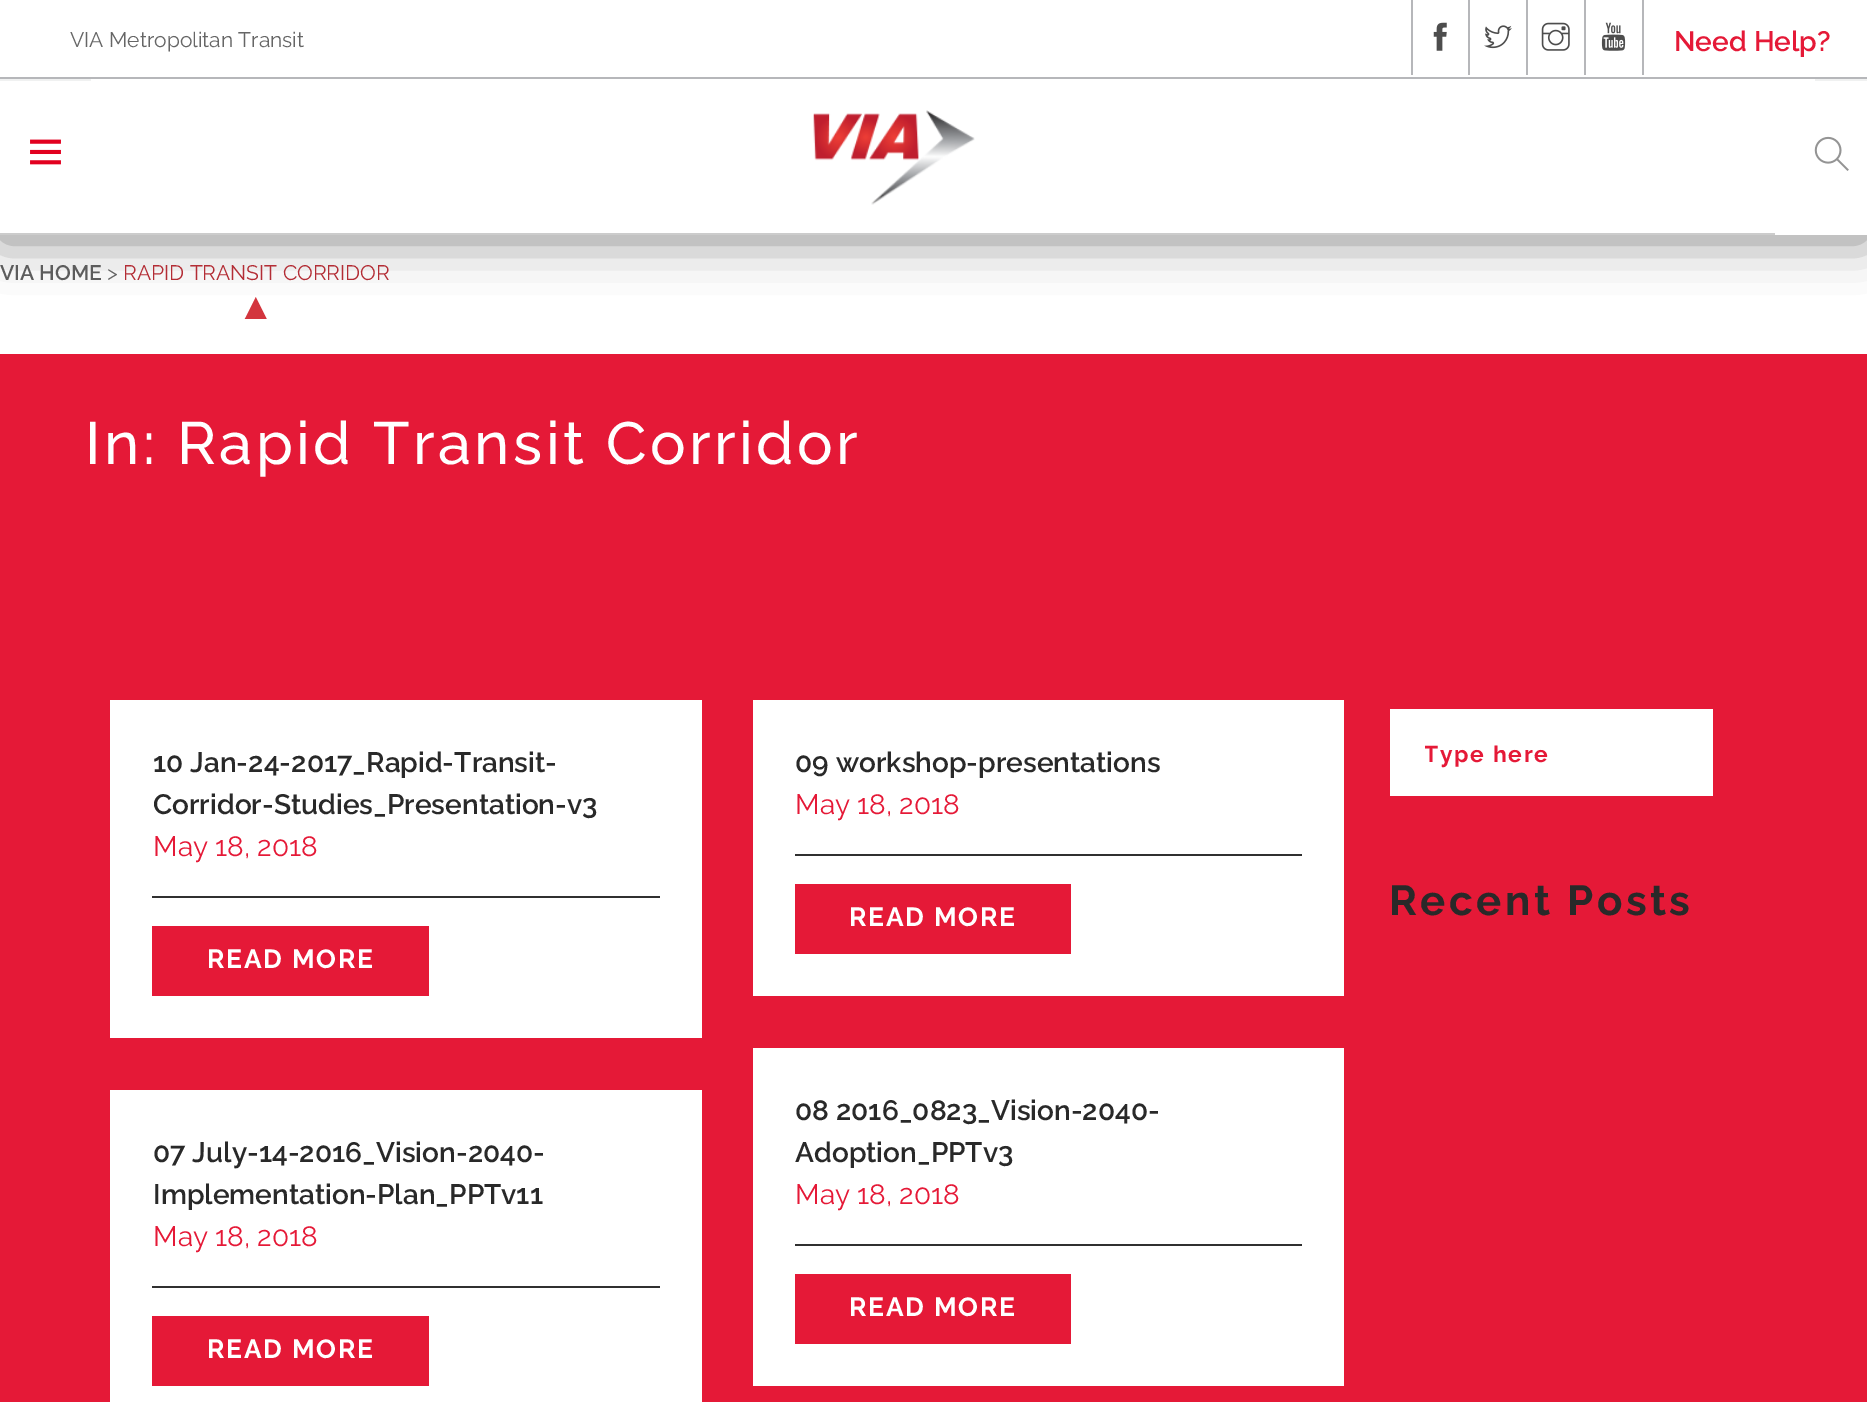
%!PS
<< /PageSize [1867 1402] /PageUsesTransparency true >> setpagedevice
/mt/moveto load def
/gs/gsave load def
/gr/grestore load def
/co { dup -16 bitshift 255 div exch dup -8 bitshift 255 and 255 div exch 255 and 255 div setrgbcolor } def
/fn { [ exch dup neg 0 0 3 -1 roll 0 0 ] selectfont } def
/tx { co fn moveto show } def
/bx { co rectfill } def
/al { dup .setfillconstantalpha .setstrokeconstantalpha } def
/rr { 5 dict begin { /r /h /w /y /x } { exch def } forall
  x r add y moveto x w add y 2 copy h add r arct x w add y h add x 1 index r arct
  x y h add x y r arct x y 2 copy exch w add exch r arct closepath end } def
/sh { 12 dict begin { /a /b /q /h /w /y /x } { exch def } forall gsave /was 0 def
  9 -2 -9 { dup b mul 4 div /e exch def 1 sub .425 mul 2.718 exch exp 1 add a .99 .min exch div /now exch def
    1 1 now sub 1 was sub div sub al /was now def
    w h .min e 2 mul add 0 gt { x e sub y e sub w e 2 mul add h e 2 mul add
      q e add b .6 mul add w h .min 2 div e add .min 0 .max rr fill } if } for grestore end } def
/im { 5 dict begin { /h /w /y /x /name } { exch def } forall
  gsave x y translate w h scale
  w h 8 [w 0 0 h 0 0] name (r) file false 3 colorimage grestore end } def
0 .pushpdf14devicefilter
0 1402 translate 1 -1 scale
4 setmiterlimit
0 0 1867 1402 16#FFFFFF bx
16#000000 co
0 5 1867 235 0 24.5 .47 sh
0 0 1867 235 16#FFFFFF bx
0 77 1867 2 16#B6B7BA bx
1468 0 2 75 16#B6B7BA bx
1411 0 2 75 16#B6B7BA bx
(media/1.raw) 1433 22 14 29 im
1526 0 2 75 16#B6B7BA bx
(media/2.raw) 1484 25 28 24 im
1584 0 2 75 16#B6B7BA bx
(media/3.raw) 1541 22 29 29 im
1642 0 2 75 16#B6B7BA bx
(media/4.raw) 1601 22 25 29 im
0 233 1775 2 16#CCCCCC bx
0 79 91 2 16#F0F1F1 bx
(media/5.raw) 30 139 31 26 im
(media/6.raw) 813 110 162 95 im
1815 79 52 2 16#F0F1F1 bx
(media/7.raw) 1814 136 35 35 im
0 354 1867 1048 16#E51937 bx
110 700 592 338 16#FFFFFF bx
152 896 508 2 16#303030 bx
152 926 277 70 16#E51937 bx
753 700 591 296 16#FFFFFF bx
795 854 507 2 16#303030 bx
795 884 276 70 16#E51937 bx
110 1090 592 312 16#FFFFFF bx
152 1286 508 2 16#303030 bx
152 1316 277 70 16#E51937 bx
753 1048 591 338 16#FFFFFF bx
795 1244 507 2 16#303030 bx
795 1274 276 70 16#E51937 bx
1390 709 323 87 16#FFFFFF bx
(VIA Metropolitan Transit) 70 47 /Raleway-Regular 21 16#666666 tx
(Need Help?) 1674 51 /Raleway-SemiBold 28 16#E51937 tx
(VIA HOME) 0 280 /Raleway-SemiBold 21 16#5C5C5C tx
(>) 107 280 /Raleway-Regular 21 16#666666 tx
(RAPID TRANSIT CORRIDOR) 123 280 /Raleway-Regular 21 16#B32D35 tx
(▲) 237 319 /LiberationSans-Regular 38 16#D3353E tx
/Raleway-Medium 59.5 fn
16#FFFFFF co
85 464 mt 3.5 0 (In: Rapid Transit Corridor) ashow
(10 Jan-24-2017_Rapid-Transit-) 153 772 /Raleway-SemiBold 28 16#292929 tx
(Corridor-Studies_Presentation-v3) 153 814 /Raleway-SemiBold 28 16#292929 tx
(May 18, 2018) 153 856 /Raleway-Regular 28 16#E51937 tx
/Raleway-Bold 26.25 fn
16#FFFFFF co
207 968 mt 1.75 0 (READ MORE) ashow
(09 workshop-presentations) 795 772 /Raleway-SemiBold 28 16#292929 tx
(May 18, 2018) 795 814 /Raleway-Regular 28 16#E51937 tx
/Raleway-Bold 26.25 fn
16#FFFFFF co
849 926 mt 1.75 0 (READ MORE) ashow
(07 July-14-2016_Vision-2040-) 153 1162 /Raleway-SemiBold 28 16#292929 tx
(Implementation-Plan_PPTv11) 153 1204 /Raleway-SemiBold 28 16#292929 tx
(May 18, 2018) 153 1246 /Raleway-Regular 28 16#E51937 tx
/Raleway-Bold 26.25 fn
16#FFFFFF co
207 1358 mt 1.75 0 (READ MORE) ashow
(08 2016_0823_Vision-2040-) 795 1120 /Raleway-SemiBold 28 16#292929 tx
(Adoption_PPTv3) 795 1162 /Raleway-SemiBold 28 16#292929 tx
(May 18, 2018) 795 1204 /Raleway-Regular 28 16#E51937 tx
/Raleway-Bold 26.25 fn
16#FFFFFF co
849 1316 mt 1.75 0 (READ MORE) ashow
gs
1425 742 288 26 rectclip
/Raleway-Bold 22.75 fn
16#E51937 co
1424 762 mt 1.75 0 (Type here) ashow
gr
/Raleway-Bold 42 fn
16#292929 co
1389 915 mt 3.5 0 (Recent Posts) ashow
.poppdf14devicefilter showpage
